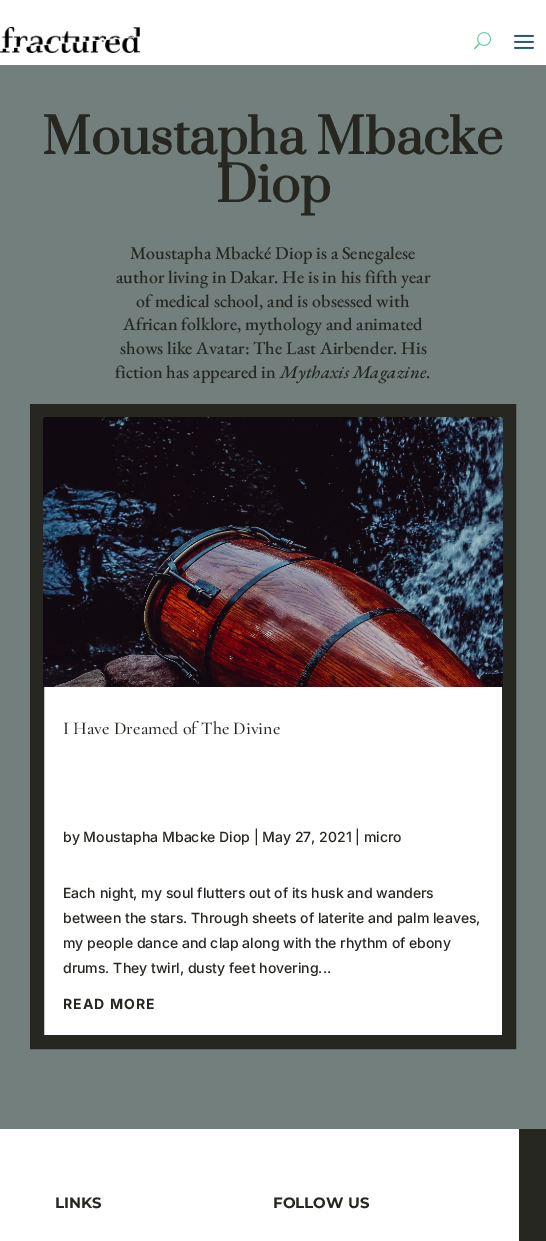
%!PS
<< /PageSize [546 1241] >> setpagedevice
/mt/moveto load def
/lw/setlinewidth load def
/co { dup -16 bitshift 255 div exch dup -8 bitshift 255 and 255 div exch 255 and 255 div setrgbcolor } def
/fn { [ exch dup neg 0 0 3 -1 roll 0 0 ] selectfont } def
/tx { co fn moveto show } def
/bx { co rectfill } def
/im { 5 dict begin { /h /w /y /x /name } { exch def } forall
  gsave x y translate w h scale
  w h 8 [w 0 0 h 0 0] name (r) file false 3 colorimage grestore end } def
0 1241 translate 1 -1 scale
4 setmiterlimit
0 0 546 1241 16#FFFFFF bx
(media/1.raw) 0 27 140 26 im
(media/2.raw) 474 32 17 18 im
(media/3.raw) 514 34 20 15 im
0 65 546 1064 16#727F7D bx
44 687 458 348 16#FFFFFF bx
16#262721 co
14 lw
37 411 472 631 rectstroke
(media/4.raw) 43 417 460 270 im
519 1129 27 112 16#262721 bx
(Moustapha Mbacke) 42 154 /Prata-Bold 48 16#262721 tx
(Diop) 216 202 /Prata-Bold 48 16#262721 tx
(Moustapha Mbacké Diop is a Senegalese) 130 259 /EBGaramond-Medium 18 16#262721 tx
(author living in Dakar. He is in his fifth year) 116 283 /EBGaramond-Medium 18 16#262721 tx
(of medical school, and is obsessed with) 136 307 /EBGaramond-Medium 18 16#262721 tx
(African folklore, mythology and animated) 123 330 /EBGaramond-Medium 18 16#262721 tx
(shows like Avatar: The Last Airbender. His) 120 354 /EBGaramond-Medium 18 16#262721 tx
(fiction has appeared in) 115 378 /EBGaramond-Medium 18 16#262721 tx
(Mythaxis Magazine) 280 378 /EBGaramond-MediumItalic 18 16#262721 tx
(.) 426 378 /EBGaramond-Medium 18 16#262721 tx
(I Have Dreamed of The Divine) 63 734 /CormorantGaramond-Medium 18 16#262721 tx
(by Moustapha Mbacke Diop | May 27, 2021 | micro) 63 842 /Inter-Medium 14 16#262721 tx
(Each night, my soul flutters out of its husk and wanders) 63 898 /Inter-Medium 14 16#262721 tx
(between the stars. Through sheets of laterite and palm leaves,) 63 923 /Inter-Medium 14 16#262721 tx
(my people dance and clap along with the rhythm of ebony) 63 948 /Inter-Medium 14 16#262721 tx
(drums. They twirl, dusty feet hovering...) 63 973 /Inter-Medium 14 16#262721 tx
/Inter-Bold 14 fn
63 1009 mt 1.1 0 (READ MORE) ashow
(LINKS) 55 1208 /Montserrat-Bold 15 16#262721 tx
(FOLLOW US) 273 1208 /Montserrat-Bold 15 16#262721 tx
showpage
